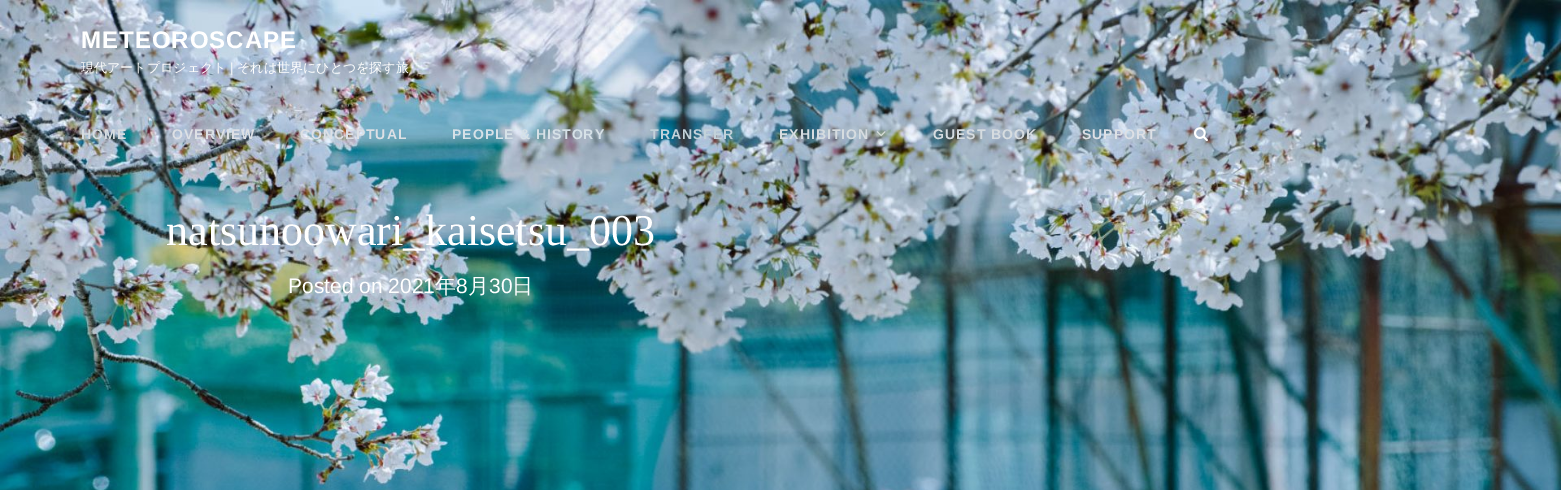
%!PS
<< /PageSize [1561 490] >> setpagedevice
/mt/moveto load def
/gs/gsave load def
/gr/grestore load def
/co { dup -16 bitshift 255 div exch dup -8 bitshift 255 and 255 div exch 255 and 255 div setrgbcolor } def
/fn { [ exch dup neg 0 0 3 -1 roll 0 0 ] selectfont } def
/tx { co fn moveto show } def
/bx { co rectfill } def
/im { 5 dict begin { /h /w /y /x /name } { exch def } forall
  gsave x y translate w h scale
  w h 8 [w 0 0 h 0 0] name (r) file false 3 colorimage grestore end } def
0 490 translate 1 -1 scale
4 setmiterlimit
0 0 1561 490 16#FFFFFF bx
(media/3.raw) 0 0 1561 490 im
(media/1.raw) 876 131 10 6 im
(media/2.raw) 1194 127 14 15 im
/LiberationSans-Bold 24 fn
81 48 mt 1 0 (METEOROSCAPE) ashow
gs
81 22 327 56 rectclip
(現代アートプロジェクト) 81 72 /WenQuanYiZenHei-Medium 13 16#FFFFFF tx
gr
(|) 230 72 /LiberationSans-Regular 13 16#FFFFFF tx
(それは世界にひとつを探す旅) 237 72 /WenQuanYiZenHei-Medium 13 16#FFFFFF tx
/LiberationSans-Bold 14 fn
16#D6DCE0 co
81 139 mt 1 0 (HOME) ashow
16#DDE0E5 co
172 139 mt 1 0 (OVERVIEW) ashow
300 139 mt 1 0 (CONCEPTUAL) ashow
16#D6E1E7 co
452 139 mt 1 0 (PEOPLE & HISTORY) ashow
16#C2D2DA co
650 139 mt 1 0 (TRANSFER) ashow
16#D6DCE0 co
779 139 mt 1 0 (EXHIBITION) ashow
933 139 mt 1 0 (GUEST BOOK) ashow
16#DDE0E5 co
1082 139 mt 1 0 (SUPPORT) ashow
(natsunoowari_kaisetsu_003) 166 245 /LiberationSerif-Regular 44 16#FFFFFF tx
(Posted on 2021) 288 293 /LiberationSans-Regular 21 16#FFFFFF tx
(年) 435 293 /WenQuanYiZenHei-Medium 21 16#FFFFFF tx
(8) 456 293 /LiberationSans-Regular 21 16#FFFFFF tx
(月) 468 293 /WenQuanYiZenHei-Medium 21 16#FFFFFF tx
(30) 489 293 /LiberationSans-Regular 21 16#FFFFFF tx
(日) 512 293 /WenQuanYiZenHei-Medium 21 16#FFFFFF tx
showpage
